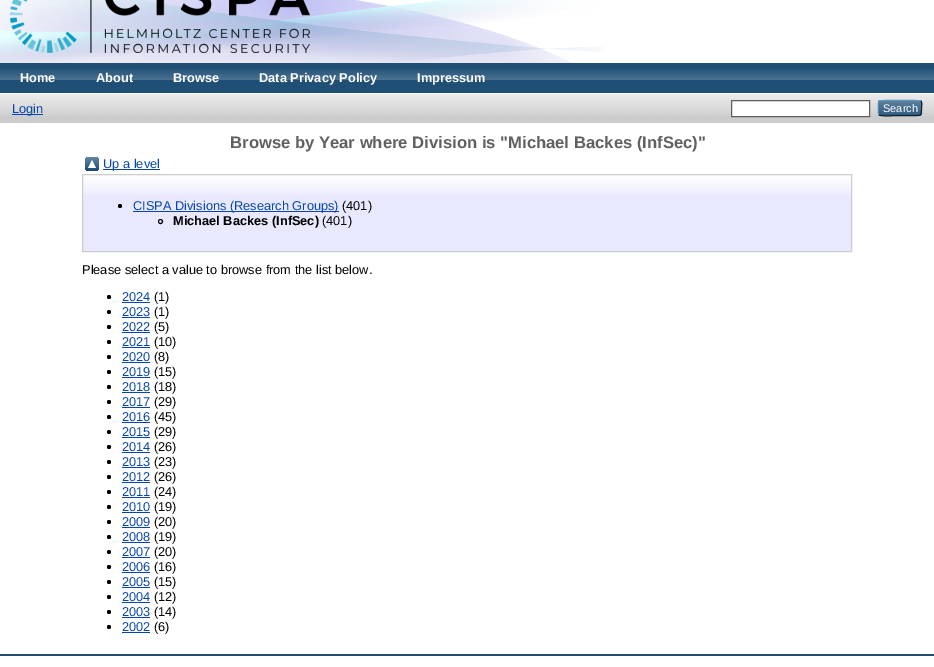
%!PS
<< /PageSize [934 667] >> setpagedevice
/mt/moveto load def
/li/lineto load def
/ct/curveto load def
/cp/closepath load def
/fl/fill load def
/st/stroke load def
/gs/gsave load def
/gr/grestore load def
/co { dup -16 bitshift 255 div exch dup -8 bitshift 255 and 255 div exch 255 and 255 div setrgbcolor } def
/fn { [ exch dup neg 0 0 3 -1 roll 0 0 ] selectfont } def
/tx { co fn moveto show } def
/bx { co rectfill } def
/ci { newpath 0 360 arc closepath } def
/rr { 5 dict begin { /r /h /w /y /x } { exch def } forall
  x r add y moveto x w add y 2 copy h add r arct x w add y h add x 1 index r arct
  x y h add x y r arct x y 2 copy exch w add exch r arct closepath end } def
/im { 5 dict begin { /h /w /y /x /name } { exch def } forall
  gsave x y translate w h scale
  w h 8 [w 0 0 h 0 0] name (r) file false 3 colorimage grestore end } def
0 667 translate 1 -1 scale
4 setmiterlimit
0 0 934 667 16#FFFFFF bx
(media/1.raw) 0 0 605 63 im
(media/2.raw) 10 0 300 53 im
0 63 934 30 16#204F76 bx
(media/3.raw) 0 69 934 11 im
0 94 934 29 16#CCCCCC bx
(media/4.raw) 0 94 934 22 im
12 114 31 1 16#0645AD bx
16#FFFFFF co
731.5 100.5 mt 869.5 100.5 li 869.5 116.5 li 731.5 116.5 li cp gs fl gr
16#606060 co
st
16#1F4F76 co
878 100 44 16 3 rr fl
(media/5.raw) 878 100 44 16 im
16#5B97C7 co
879 101 mt 880.5 100 919.5 100 921 101 ct st
16#0D2131 co
921 101 mt 922.5 103 921.5 106 921.5 108 ct 921.5 116.5 922 115.5 912.5 115.5 ct 900 115.5 li 897 115.5 881 116.5 879 115 ct st
16#5287B3 co
879 115 mt 878 113.5 878.5 109.5 878.5 108 ct 878.5 106.5 878 102.5 879 101 ct st
(media/6.raw) 85 157 14 14 im
103 169 57 1 16#0645AD bx
83 176 768 75 16#E8E8FF bx
(media/7.raw) 83 175 768 20 im
16#CCCCCC co
82.5 174.5 769 77 rectstroke
16#000000 co
120 206 2 ci fl
133 211 206 1 16#0645AD bx
16#000000 co
160.5 221.5 2 ci st
109 297 2 ci fl
122 302 28 1 16#0645AD bx
16#000000 co
109 312 2 ci fl
122 317 28 1 16#0645AD bx
16#000000 co
109 327 2 ci fl
122 332 28 1 16#0645AD bx
16#000000 co
109 342 2 ci fl
122 347 28 1 16#0645AD bx
16#000000 co
109 357 2 ci fl
122 362 28 1 16#0645AD bx
16#000000 co
109 372 2 ci fl
122 377 28 1 16#0645AD bx
16#000000 co
109 387 2 ci fl
122 392 28 1 16#0645AD bx
16#000000 co
109 402 2 ci fl
122 407 28 1 16#0645AD bx
16#000000 co
109 417 2 ci fl
122 422 28 1 16#0645AD bx
16#000000 co
109 432 2 ci fl
122 437 28 1 16#0645AD bx
16#000000 co
109 447 2 ci fl
122 452 28 1 16#0645AD bx
16#000000 co
109 462 2 ci fl
122 467 28 1 16#0645AD bx
16#000000 co
109 477 2 ci fl
122 482 28 1 16#0645AD bx
16#000000 co
109 492 2 ci fl
122 497 28 1 16#0645AD bx
16#000000 co
109 507 2 ci fl
122 512 28 1 16#0645AD bx
16#000000 co
109 522 2 ci fl
122 527 28 1 16#0645AD bx
16#000000 co
109 537 2 ci fl
122 542 28 1 16#0645AD bx
16#000000 co
109 552 2 ci fl
122 557 28 1 16#0645AD bx
16#000000 co
109 567 2 ci fl
122 572 28 1 16#0645AD bx
16#000000 co
109 582 2 ci fl
122 587 28 1 16#0645AD bx
16#000000 co
109 597 2 ci fl
122 602 28 1 16#0645AD bx
16#000000 co
109 612 2 ci fl
122 617 28 1 16#0645AD bx
16#000000 co
109 627 2 ci fl
122 632 28 1 16#0645AD bx
0 654 934 2 16#204F76 bx
(Home) 20 82 /LiberationSans-Bold 12.8 16#FFFFFF tx
(About) 96 82 /LiberationSans-Bold 12.8 16#FFFFFF tx
(Browse) 173 82 /LiberationSans-Bold 12.8 16#FFFFFF tx
(Data Privacy Policy) 259 82 /LiberationSans-Bold 12.8 16#FFFFFF tx
(Impressum) 417 82 /LiberationSans-Bold 12.8 16#FFFFFF tx
(Login) 12 113 /LiberationSans-Regular 12.8 16#0645AD tx
(Search) 883 112 /LiberationSans-Regular 11 16#FFFFFF tx
(Browse by Year where Division is "Michael Backes \(InfSec\)") 230 148 /LiberationSans-Bold 16.65 16#606060 tx
(Up a level) 103 168 /LiberationSans-Regular 12.8 16#0645AD tx
(CISPA Divisions \(Research Groups\)) 133 210 /LiberationSans-Regular 12.8 16#0645AD tx
(\(401\)) 342 210 /LiberationSans-Regular 12.8 16#000000 tx
(Michael Backes \(InfSec\)) 173 225 /LiberationSans-Bold 12.8 16#000000 tx
(\(401\)) 322 225 /LiberationSans-Regular 12.8 16#000000 tx
(Please select a value to browse from the list below.) 82 274 /LiberationSans-Regular 12.8 16#000000 tx
(2024) 122 301 /LiberationSans-Regular 12.8 16#0645AD tx
(\(1\)) 154 301 /LiberationSans-Regular 12.8 16#000000 tx
(2023) 122 316 /LiberationSans-Regular 12.8 16#0645AD tx
(\(1\)) 154 316 /LiberationSans-Regular 12.8 16#000000 tx
(2022) 122 331 /LiberationSans-Regular 12.8 16#0645AD tx
(\(5\)) 154 331 /LiberationSans-Regular 12.8 16#000000 tx
(2021) 122 346 /LiberationSans-Regular 12.8 16#0645AD tx
(\(10\)) 154 346 /LiberationSans-Regular 12.8 16#000000 tx
(2020) 122 361 /LiberationSans-Regular 12.8 16#0645AD tx
(\(8\)) 154 361 /LiberationSans-Regular 12.8 16#000000 tx
(2019) 122 376 /LiberationSans-Regular 12.8 16#0645AD tx
(\(15\)) 154 376 /LiberationSans-Regular 12.8 16#000000 tx
(2018) 122 391 /LiberationSans-Regular 12.8 16#0645AD tx
(\(18\)) 154 391 /LiberationSans-Regular 12.8 16#000000 tx
(2017) 122 406 /LiberationSans-Regular 12.8 16#0645AD tx
(\(29\)) 154 406 /LiberationSans-Regular 12.8 16#000000 tx
(2016) 122 421 /LiberationSans-Regular 12.8 16#0645AD tx
(\(45\)) 154 421 /LiberationSans-Regular 12.8 16#000000 tx
(2015) 122 436 /LiberationSans-Regular 12.8 16#0645AD tx
(\(29\)) 154 436 /LiberationSans-Regular 12.8 16#000000 tx
(2014) 122 451 /LiberationSans-Regular 12.8 16#0645AD tx
(\(26\)) 154 451 /LiberationSans-Regular 12.8 16#000000 tx
(2013) 122 466 /LiberationSans-Regular 12.8 16#0645AD tx
(\(23\)) 154 466 /LiberationSans-Regular 12.8 16#000000 tx
(2012) 122 481 /LiberationSans-Regular 12.8 16#0645AD tx
(\(26\)) 154 481 /LiberationSans-Regular 12.8 16#000000 tx
(2011) 122 496 /LiberationSans-Regular 12.8 16#0645AD tx
(\(24\)) 154 496 /LiberationSans-Regular 12.8 16#000000 tx
(2010) 122 511 /LiberationSans-Regular 12.8 16#0645AD tx
(\(19\)) 154 511 /LiberationSans-Regular 12.8 16#000000 tx
(2009) 122 526 /LiberationSans-Regular 12.8 16#0645AD tx
(\(20\)) 154 526 /LiberationSans-Regular 12.8 16#000000 tx
(2008) 122 541 /LiberationSans-Regular 12.8 16#0645AD tx
(\(19\)) 154 541 /LiberationSans-Regular 12.8 16#000000 tx
(2007) 122 556 /LiberationSans-Regular 12.8 16#0645AD tx
(\(20\)) 154 556 /LiberationSans-Regular 12.8 16#000000 tx
(2006) 122 571 /LiberationSans-Regular 12.8 16#0645AD tx
(\(16\)) 154 571 /LiberationSans-Regular 12.8 16#000000 tx
(2005) 122 586 /LiberationSans-Regular 12.8 16#0645AD tx
(\(15\)) 154 586 /LiberationSans-Regular 12.8 16#000000 tx
(2004) 122 601 /LiberationSans-Regular 12.8 16#0645AD tx
(\(12\)) 154 601 /LiberationSans-Regular 12.8 16#000000 tx
(2003) 122 616 /LiberationSans-Regular 12.8 16#0645AD tx
(\(14\)) 154 616 /LiberationSans-Regular 12.8 16#000000 tx
(2002) 122 631 /LiberationSans-Regular 12.8 16#0645AD tx
(\(6\)) 154 631 /LiberationSans-Regular 12.8 16#000000 tx
showpage
